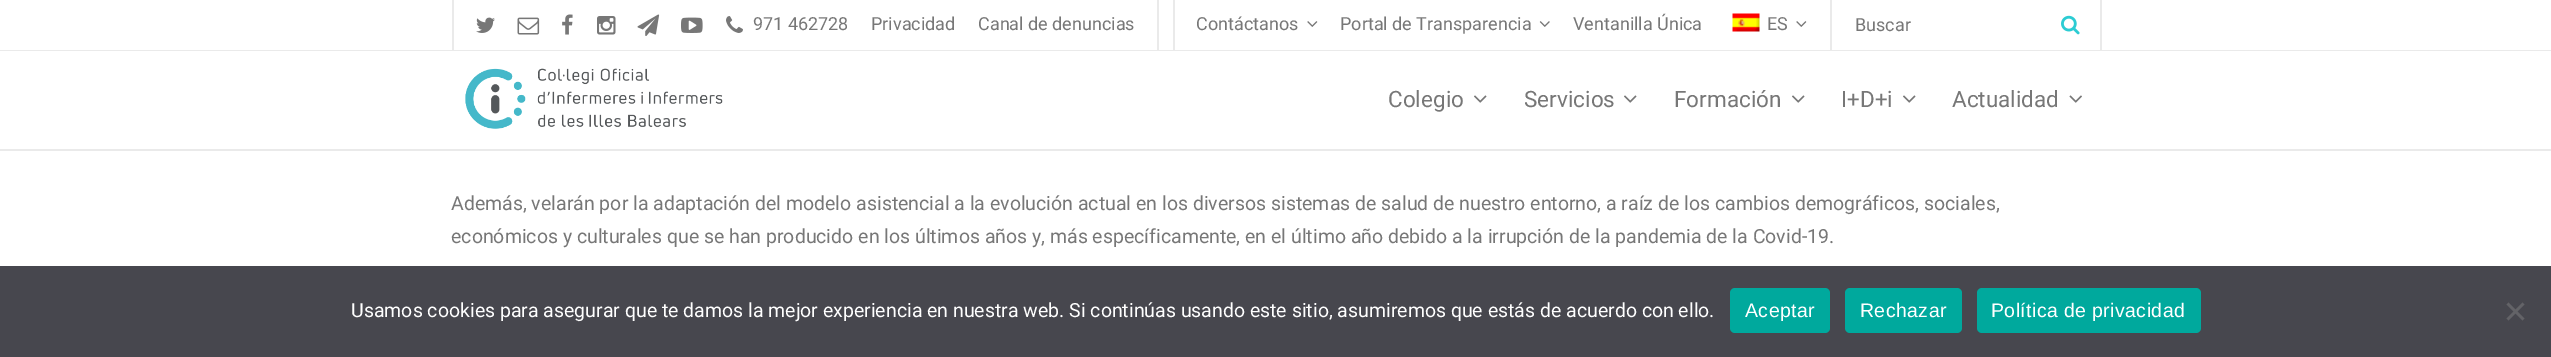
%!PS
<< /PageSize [2551 357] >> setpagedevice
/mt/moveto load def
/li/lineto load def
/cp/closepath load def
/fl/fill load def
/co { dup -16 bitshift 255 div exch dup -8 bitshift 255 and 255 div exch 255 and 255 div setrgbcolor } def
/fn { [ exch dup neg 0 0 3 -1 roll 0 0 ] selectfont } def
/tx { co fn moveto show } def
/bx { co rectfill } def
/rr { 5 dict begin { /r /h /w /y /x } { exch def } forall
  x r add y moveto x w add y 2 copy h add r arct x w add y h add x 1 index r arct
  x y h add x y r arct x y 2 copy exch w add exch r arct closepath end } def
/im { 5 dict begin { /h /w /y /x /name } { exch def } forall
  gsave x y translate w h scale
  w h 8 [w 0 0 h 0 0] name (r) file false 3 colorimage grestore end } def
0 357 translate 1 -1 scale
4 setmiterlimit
0 0 2551 357 16#FFFFFF bx
0 266 2551 91 16#47474E bx
0 50 2551 1 16#EAEAEA bx
1157 0 2 50 16#EAEAEA bx
452 0 2 50 16#EAEAEA bx
(media/1.raw) 476 17 19 16 im
(media/2.raw) 517 17 23 18 im
(media/3.raw) 562 14 11 21 im
(media/4.raw) 597 16 19 19 im
(media/5.raw) 637 14 23 22 im
(media/6.raw) 681 17 22 16 im
(media/7.raw) 726 16 17 17 im
1830 0 2 50 16#EAEAEA bx
1173 0 2 50 16#EAEAEA bx
(media/8.raw) 1307 21 11 6 im
(media/9.raw) 1539 21 11 6 im
(media/10.raw) 1732 13 28 19 im
(media/8.raw) 1796 21 11 6 im
2100 0 2 50 16#EAEAEA bx
(media/11.raw) 2061 15 19 20 im
0 149 2551 2 16#EAEAEA bx
(media/12.raw) 465 68 258 61 im
(media/13.raw) 1474 95 13 8 im
(media/13.raw) 1624 95 13 8 im
(media/13.raw) 1792 95 13 8 im
(media/13.raw) 1903 95 13 8 im
(media/14.raw) 2069 95 13 8 im
16#00A99D co
1730 288 100 45 5 rr fl
1845 288 117 45 5 rr fl
1977 288 224 45 5 rr fl
16#636367 co
2522.5 302.5 mt 2524.5 304.5 li 2508.5 320.5 li 2506.5 318.5 li cp fl
2506.5 304.5 mt 2508.5 302.5 li 2524.5 318.5 li 2522.5 320.5 li cp fl
(971 462728) 753 30 /Roboto-Regular 18 16#777777 tx
(Privacidad) 871 30 /Roboto-Regular 18 16#777777 tx
(Canal de denuncias) 978 30 /Roboto-Regular 18 16#777777 tx
(Contáctanos) 1196 30 /Roboto-Regular 18 16#777777 tx
(Portal de Transparencia) 1340 30 /Roboto-Regular 18 16#777777 tx
(Ventanilla Única) 1573 30 /Roboto-Regular 18 16#777777 tx
(ES) 1767 30 /Roboto-Regular 18 16#777777 tx
(Buscar) 1855 31 /Roboto-Regular 18 16#777777 tx
(Colegio) 1388 107 /Roboto-Regular 22.5 16#777777 tx
(Servicios) 1524 107 /Roboto-Regular 22.5 16#777777 tx
(Formación) 1674 107 /Roboto-Regular 22.5 16#777777 tx
(I+D+i) 1841 107 /Roboto-Regular 22.5 16#777777 tx
(Actualidad) 1952 107 /Roboto-Regular 22.5 16#777777 tx
(Además, velarán por la adaptación del modelo asistencial a la evolución actual en los diversos sistemas de salud de nuestro entorno, a raíz de los cambios demográficos, sociales,) 451 210 /Roboto-Regular 19.5 16#777777 tx
(económicos y culturales que se han producido en los últimos años y, más específicamente, en el último año debido a la irrupción de la pandemia de la Covid-19.) 451 243 /Roboto-Regular 19.5 16#777777 tx
(Usamos cookies para asegurar que te damos la mejor experiencia en nuestra web. Si continúas usando este sitio, asumiremos que estás de acuerdo con ello.) 351 317 /Roboto-Regular 19.5 16#FFFFFF tx
/LiberationSans-Regular 19.5 fn
1745 317 mt .4 0 (Aceptar) ashow
1860 317 mt .4 0 (Rechazar) ashow
1991 317 mt .4 0 (Política de privacidad) ashow
showpage
